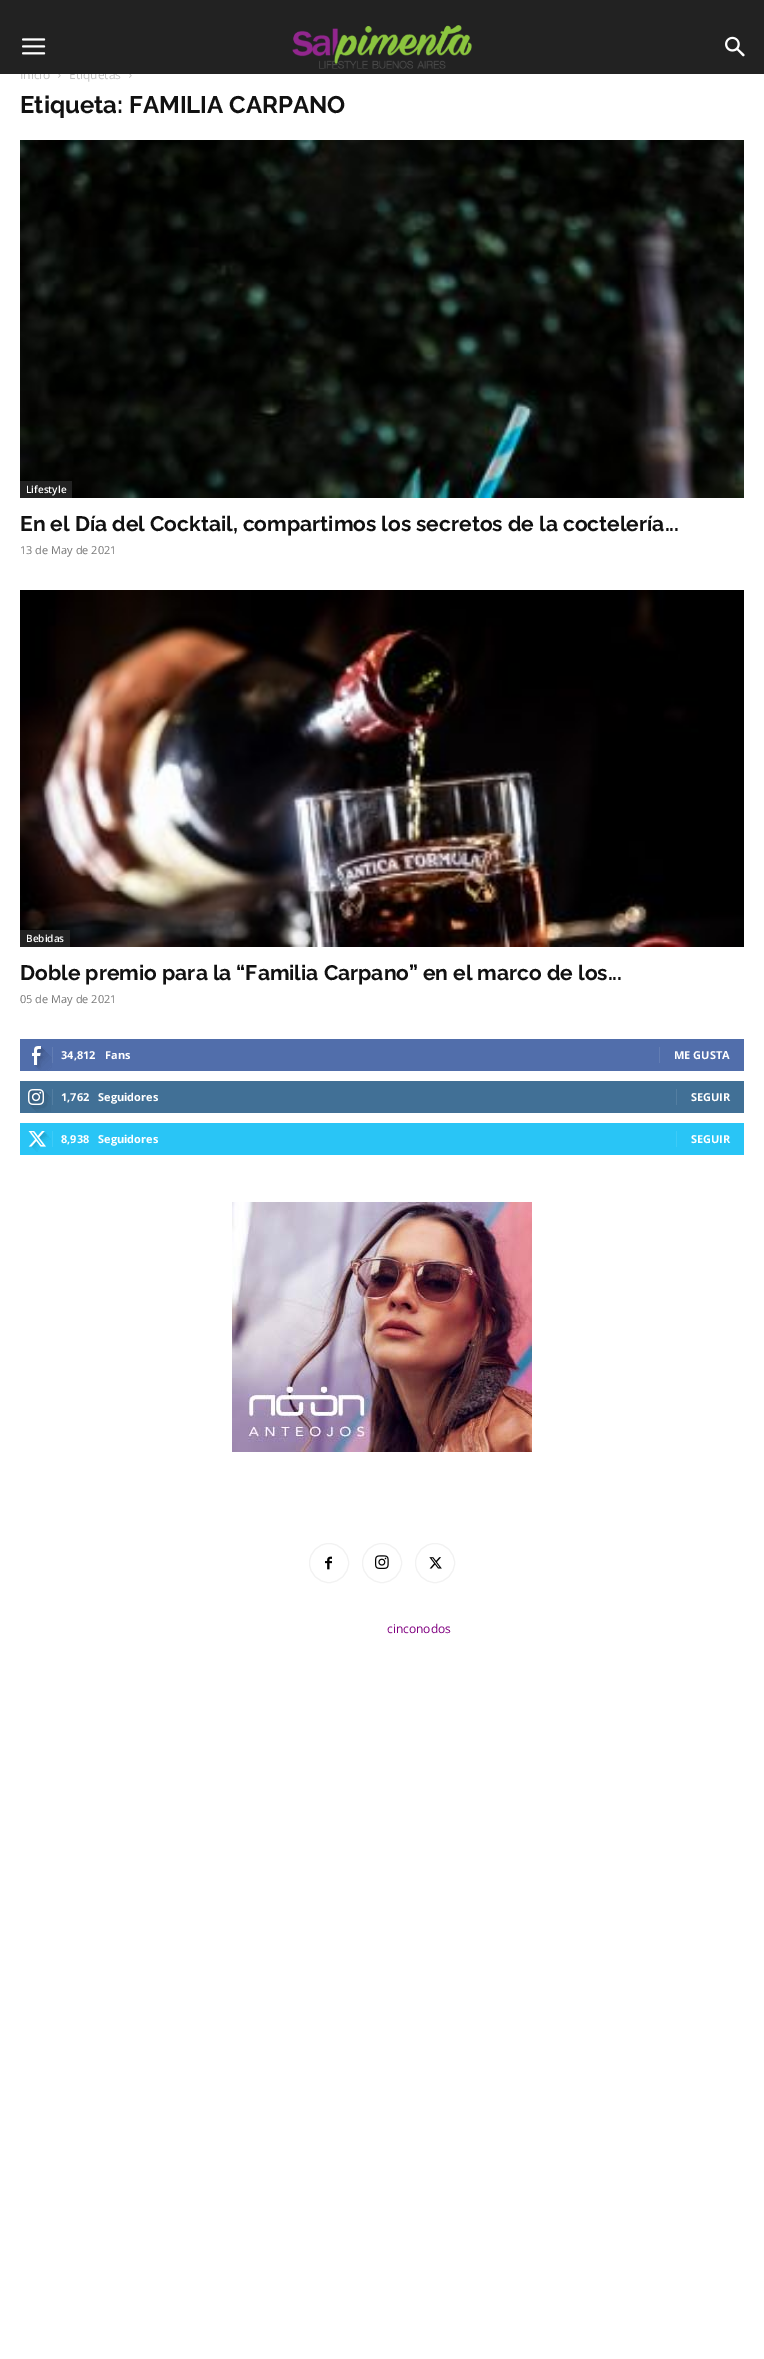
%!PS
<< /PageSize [764 2359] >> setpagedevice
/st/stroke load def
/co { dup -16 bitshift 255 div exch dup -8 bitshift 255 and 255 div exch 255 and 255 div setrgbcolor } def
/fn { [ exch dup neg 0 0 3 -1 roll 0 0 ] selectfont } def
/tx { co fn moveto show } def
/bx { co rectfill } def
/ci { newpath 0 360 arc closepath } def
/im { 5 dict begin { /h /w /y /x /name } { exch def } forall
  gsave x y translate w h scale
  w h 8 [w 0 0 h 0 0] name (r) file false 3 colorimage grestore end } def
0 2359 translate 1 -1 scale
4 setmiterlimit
0 0 764 2359 16#FFFFFF bx
(media/4.raw) 58 74 3 4 im
(media/4.raw) 129 74 3 4 im
(media/5.raw) 20 140 724 358 im
20 481 52 17 16#222222 bx
(media/6.raw) 20 590 724 357 im
20 930 50 17 16#222222 bx
20 1039 724 32 16#516EAB bx
(media/7.raw) 32 1046 20 25 im
52 1047 1 16 16#627DB3 bx
659 1047 1 16 16#627DB3 bx
20 1081 724 32 16#417096 bx
(media/8.raw) 28 1089 23 23 im
52 1089 1 16 16#547EA1 bx
676 1089 1 16 16#547EA1 bx
20 1123 724 32 16#29C5F6 bx
(media/9.raw) 28 1131 23 21 im
52 1131 1 16 16#3ECBF7 bx
676 1131 1 16 16#3ECBF7 bx
(media/10.raw) 232 1202 300 250 im
(media/11.raw) 325 1556 7 14 im
16#F2F2F2 co
329 1563 19.5 ci st
(media/12.raw) 375 1555 14 14 im
382 1563 19.5 ci st
(media/13.raw) 429 1557 13 12 im
435 1563 19.5 ci st
(Inicio) 20 79 /OpenSans-Regular 12 16#C3C3C3 tx
(Etiquetas) 69 79 /OpenSans-Regular 12 16#C3C3C3 tx
0 0 764 74 16#222222 bx
(media/3.raw) 725 36 20 21 im
(media/2.raw) 292 25 180 44 im
(media/1.raw) 22 38 24 17 im
(Etiqueta: FAMILIA CARPANO) 20 113 /Raleway-Bold 24 16#111111 tx
(Lifestyle) 26 493 /OpenSans-SemiBold 10 16#FFFFFF tx
(En el Día del Cocktail, compartimos los secretos de la coctelería...) 20 531 /Raleway-Bold 21 16#111111 tx
(13 de May de 2021) 20 554 /OpenSans-Regular 11 16#767676 tx
(Bebidas) 26 942 /OpenSans-SemiBold 10 16#FFFFFF tx
(Doble premio para la “Familia Carpano” en el marco de los...) 20 980 /Raleway-Bold 21 16#111111 tx
(05 de May de 2021) 20 1003 /OpenSans-Regular 11 16#767676 tx
(34,812) 61 1059 /OpenSans-Bold 11 16#FFFFFF tx
(Fans) 105 1059 /OpenSans-Bold 11 16#FFFFFF tx
(ME GUSTA) 674 1059 /OpenSans-Bold 11 16#FFFFFF tx
(1,762) 61 1101 /OpenSans-Bold 11 16#FFFFFF tx
(Seguidores) 98 1101 /OpenSans-Bold 11 16#FFFFFF tx
(SEGUIR) 691 1101 /OpenSans-Bold 11 16#FFFFFF tx
(8,938) 61 1143 /OpenSans-Bold 11 16#FFFFFF tx
(Seguidores) 98 1143 /OpenSans-Bold 11 16#FFFFFF tx
(SEGUIR) 691 1143 /OpenSans-Bold 11 16#FFFFFF tx
(cinconodos) 387 1633 /OpenSans-Regular 12 16#800080 tx
showpage
